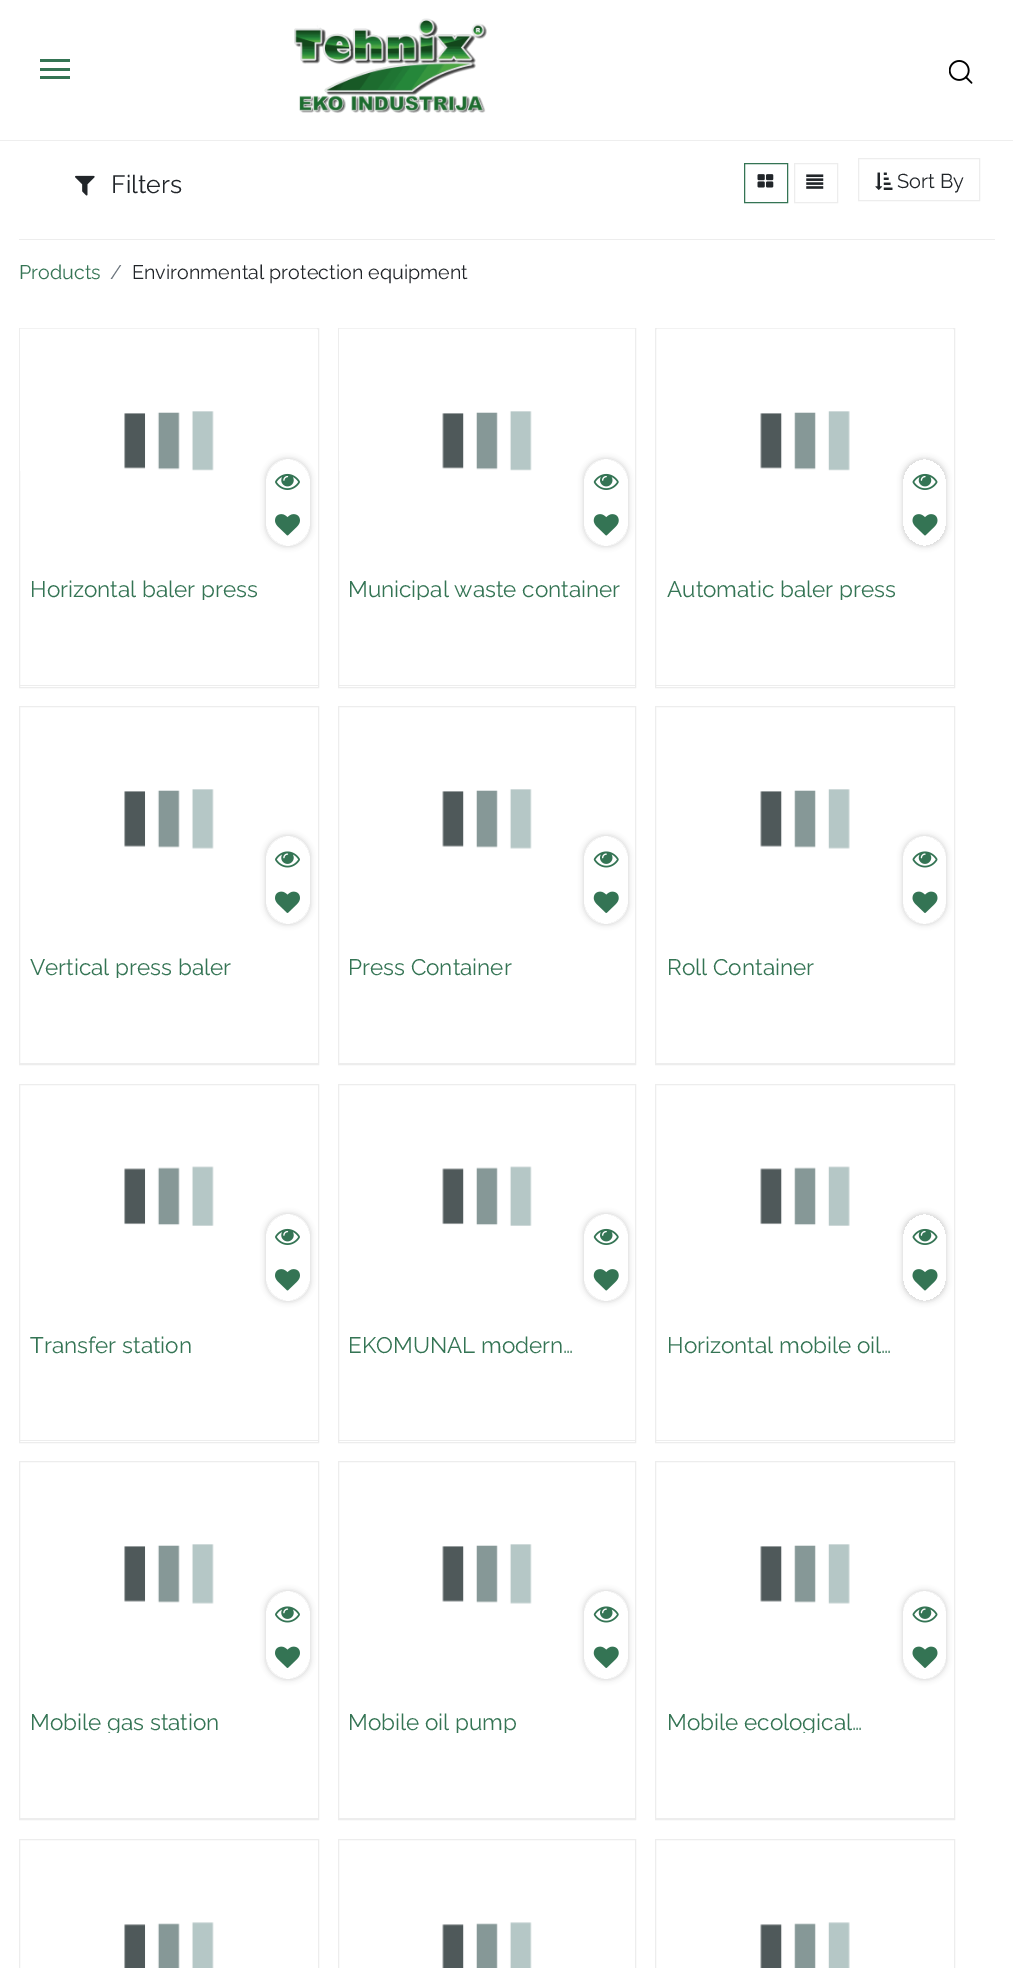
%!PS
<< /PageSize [1013 1968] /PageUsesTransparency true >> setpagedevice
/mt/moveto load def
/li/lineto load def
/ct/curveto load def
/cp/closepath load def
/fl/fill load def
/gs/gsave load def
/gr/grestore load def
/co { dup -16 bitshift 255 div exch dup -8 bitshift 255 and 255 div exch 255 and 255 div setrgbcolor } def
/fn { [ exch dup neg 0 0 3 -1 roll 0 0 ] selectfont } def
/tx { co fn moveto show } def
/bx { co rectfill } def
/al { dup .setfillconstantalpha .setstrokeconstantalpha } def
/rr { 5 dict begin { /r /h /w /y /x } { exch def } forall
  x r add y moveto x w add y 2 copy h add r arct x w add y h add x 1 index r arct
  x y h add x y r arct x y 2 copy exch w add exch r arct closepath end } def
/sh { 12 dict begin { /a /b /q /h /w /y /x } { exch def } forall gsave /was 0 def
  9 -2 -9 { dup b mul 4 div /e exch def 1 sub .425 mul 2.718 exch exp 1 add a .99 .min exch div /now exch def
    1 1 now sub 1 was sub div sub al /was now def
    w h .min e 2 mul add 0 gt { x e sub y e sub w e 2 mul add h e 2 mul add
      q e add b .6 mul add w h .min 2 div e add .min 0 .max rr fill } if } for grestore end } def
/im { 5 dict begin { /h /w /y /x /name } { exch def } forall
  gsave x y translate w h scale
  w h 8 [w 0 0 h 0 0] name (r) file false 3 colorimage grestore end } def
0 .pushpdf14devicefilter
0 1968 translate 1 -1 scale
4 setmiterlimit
0 0 1013 1968 16#FFFFFF bx
0 140 1013 1 16#EEEEEE bx
40 59 30 3 16#347454 bx
40 68 30 3 16#347454 bx
40 76 30 3 16#347454 bx
(media/1.raw) 294 18 193 95 im
(media/2.raw) 949 60 24 24 im
19 239 976 1 16#EDEDED bx
(media/3.raw) 75 175 20 21 im
16#347454 co
744.5 163.5 43 39 rectstroke
(media/4.raw) 757 174 17 14 im
16#EDEDED co
794.5 163.5 43 39 rectstroke
(media/5.raw) 806 174 18 15 im
858.5 158.5 121 42 rectstroke
(media/6.raw) 875 172 18 18 im
19.5 328.5 299 359 rectstroke
20 685 298 1 16#EDEDED bx
(media/7.raw) 20 328 297 143 im
gs
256 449 mt 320 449 li 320 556 li 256 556 li cp 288 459 mt 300 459 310 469 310 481 ct 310 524 li 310 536 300 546 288 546 ct 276 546 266 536 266 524 ct 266 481 li 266 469 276 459 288 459 ct cp eoclip newpath
16#000000 co
266 459 44 87 22 3 .2 sh
gr
0.68 al
16#FFFFFF co
266 459 44 87 22 rr fl
1 al
(media/8.raw) 275 473 25 17 im
(media/9.raw) 275 514 25 22 im
16#EDEDED co
338.5 328.5 297 359 rectstroke
339 685 296 1 16#EDEDED bx
(media/10.raw) 339 328 296 143 im
gs
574 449 mt 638 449 li 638 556 li 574 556 li cp 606 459 mt 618 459 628 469 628 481 ct 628 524 li 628 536 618 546 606 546 ct 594 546 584 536 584 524 ct 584 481 li 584 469 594 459 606 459 ct cp eoclip newpath
16#000000 co
584 459 44 87 22 3 .2 sh
gr
0.68 al
16#FFFFFF co
584 459 44 87 22 rr fl
1 al
(media/11.raw) 593 473 26 17 im
(media/12.raw) 593 514 26 22 im
16#EDEDED co
655.5 328.5 299 359 rectstroke
656 685 298 1 16#EDEDED bx
(media/13.raw) 657 328 296 143 im
gs
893 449 mt 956 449 li 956 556 li 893 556 li cp 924.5 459 mt 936.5 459 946 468.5 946 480.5 ct 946 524.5 li 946 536.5 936.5 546 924.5 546 ct 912.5 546 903 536.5 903 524.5 ct 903 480.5 li 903 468.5 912.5 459 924.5 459 ct cp eoclip newpath
16#000000 co
903 459 43 87 21.5 3 .2 sh
gr
(media/14.raw) 912 473 26 17 im
(media/15.raw) 912 514 26 22 im
19.5 706.5 299 358 rectstroke
20 1063 298 1 16#EDEDED bx
(media/16.raw) 124 789 90 60 im
gs
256 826 mt 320 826 li 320 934 li 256 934 li cp 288 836 mt 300 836 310 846 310 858 ct 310 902 li 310 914 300 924 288 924 ct 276 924 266 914 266 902 ct 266 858 li 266 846 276 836 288 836 ct cp eoclip newpath
16#000000 co
266 836 44 88 22 3 .2 sh
gr
0.68 al
16#FFFFFF co
266 836 44 88 22 rr fl
1 al
(media/17.raw) 275 851 25 17 im
(media/18.raw) 275 891 25 22 im
16#EDEDED co
338.5 706.5 297 358 rectstroke
339 1063 296 1 16#EDEDED bx
(media/19.raw) 442 789 90 60 im
gs
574 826 mt 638 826 li 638 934 li 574 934 li cp 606 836 mt 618 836 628 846 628 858 ct 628 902 li 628 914 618 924 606 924 ct 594 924 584 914 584 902 ct 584 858 li 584 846 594 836 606 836 ct cp eoclip newpath
16#000000 co
584 836 44 88 22 3 .2 sh
gr
0.68 al
16#FFFFFF co
584 836 44 88 22 rr fl
1 al
(media/20.raw) 593 851 26 17 im
(media/21.raw) 593 891 26 22 im
16#EDEDED co
655.5 706.5 299 358 rectstroke
656 1063 298 1 16#EDEDED bx
(media/22.raw) 760 789 90 60 im
gs
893 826 mt 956 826 li 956 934 li 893 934 li cp 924.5 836 mt 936.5 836 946 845.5 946 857.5 ct 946 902.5 li 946 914.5 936.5 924 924.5 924 ct 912.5 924 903 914.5 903 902.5 ct 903 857.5 li 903 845.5 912.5 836 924.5 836 ct cp eoclip newpath
16#000000 co
903 836 43 88 21.5 3 .2 sh
gr
0.68 al
16#FFFFFF co
903 836 43 88 21.5 rr fl
1 al
(media/23.raw) 912 851 26 17 im
(media/24.raw) 912 891 26 22 im
16#EDEDED co
19.5 1084.5 299 358 rectstroke
20 1440 298 1 16#EDEDED bx
(media/25.raw) 124 1166 90 60 im
gs
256 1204 mt 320 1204 li 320 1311 li 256 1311 li cp 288 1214 mt 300 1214 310 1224 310 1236 ct 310 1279 li 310 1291 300 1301 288 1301 ct 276 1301 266 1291 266 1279 ct 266 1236 li 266 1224 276 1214 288 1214 ct cp eoclip newpath
16#000000 co
266 1214 44 87 22 3 .2 sh
gr
0.68 al
16#FFFFFF co
266 1214 44 87 22 rr fl
1 al
(media/8.raw) 275 1228 25 17 im
(media/9.raw) 275 1269 25 22 im
16#EDEDED co
338.5 1084.5 297 358 rectstroke
339 1440 296 1 16#EDEDED bx
(media/26.raw) 442 1166 90 60 im
gs
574 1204 mt 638 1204 li 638 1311 li 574 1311 li cp 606 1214 mt 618 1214 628 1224 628 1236 ct 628 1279 li 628 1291 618 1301 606 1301 ct 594 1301 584 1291 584 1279 ct 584 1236 li 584 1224 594 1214 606 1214 ct cp eoclip newpath
16#000000 co
584 1214 44 87 22 3 .2 sh
gr
0.68 al
16#FFFFFF co
584 1214 44 87 22 rr fl
1 al
(media/11.raw) 593 1228 26 17 im
(media/12.raw) 593 1269 26 22 im
16#EDEDED co
655.5 1084.5 299 358 rectstroke
656 1440 298 1 16#EDEDED bx
(media/27.raw) 760 1166 90 60 im
gs
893 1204 mt 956 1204 li 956 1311 li 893 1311 li cp 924.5 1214 mt 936.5 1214 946 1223.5 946 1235.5 ct 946 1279.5 li 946 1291.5 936.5 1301 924.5 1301 ct 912.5 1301 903 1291.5 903 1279.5 ct 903 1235.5 li 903 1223.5 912.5 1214 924.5 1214 ct cp eoclip newpath
16#000000 co
903 1214 43 87 21.5 3 .2 sh
gr
(media/14.raw) 912 1228 26 17 im
(media/15.raw) 912 1269 26 22 im
19.5 1461.5 299 358 rectstroke
20 1818 298 1 16#EDEDED bx
(media/16.raw) 124 1544 90 60 im
gs
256 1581 mt 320 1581 li 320 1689 li 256 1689 li cp 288 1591 mt 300 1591 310 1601 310 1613 ct 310 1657 li 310 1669 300 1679 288 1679 ct 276 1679 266 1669 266 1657 ct 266 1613 li 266 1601 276 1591 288 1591 ct cp eoclip newpath
16#000000 co
266 1591 44 88 22 3 .2 sh
gr
0.68 al
16#FFFFFF co
266 1591 44 88 22 rr fl
1 al
(media/17.raw) 275 1606 25 17 im
(media/18.raw) 275 1646 25 22 im
16#EDEDED co
338.5 1461.5 297 358 rectstroke
339 1818 296 1 16#EDEDED bx
(media/19.raw) 442 1544 90 60 im
gs
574 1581 mt 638 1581 li 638 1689 li 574 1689 li cp 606 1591 mt 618 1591 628 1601 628 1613 ct 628 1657 li 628 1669 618 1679 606 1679 ct 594 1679 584 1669 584 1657 ct 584 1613 li 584 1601 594 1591 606 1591 ct cp eoclip newpath
16#000000 co
584 1591 44 88 22 3 .2 sh
gr
0.68 al
16#FFFFFF co
584 1591 44 88 22 rr fl
1 al
(media/20.raw) 593 1606 26 17 im
(media/21.raw) 593 1646 26 22 im
16#EDEDED co
655.5 1461.5 299 358 rectstroke
656 1818 298 1 16#EDEDED bx
(media/22.raw) 760 1544 90 60 im
gs
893 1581 mt 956 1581 li 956 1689 li 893 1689 li cp 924.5 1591 mt 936.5 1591 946 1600.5 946 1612.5 ct 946 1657.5 li 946 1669.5 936.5 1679 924.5 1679 ct 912.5 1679 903 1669.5 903 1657.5 ct 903 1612.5 li 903 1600.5 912.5 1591 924.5 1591 ct cp eoclip newpath
16#000000 co
903 1591 43 88 21.5 3 .2 sh
gr
0.68 al
16#FFFFFF co
903 1591 43 88 21.5 rr fl
1 al
(media/23.raw) 912 1606 26 17 im
(media/24.raw) 912 1646 26 22 im
16#EDEDED co
19.5 1839.5 299 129 rectstroke
(media/28.raw) 124 1922 90 46 im
338.5 1839.5 297 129 rectstroke
(media/29.raw) 442 1922 90 46 im
655.5 1839.5 299 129 rectstroke
(media/30.raw) 760 1922 90 46 im
(Filters) 111 193 /Raleway-Regular 25 16#212529 tx
(Sort By) 897 188 /Raleway-Regular 20 16#212529 tx
(Products) 19 279 /Raleway-Regular 19.7 16#347454 tx
(/) 110 279 /Raleway-Regular 19.7 16#6C757D tx
(Environmental protection equipment) 132 279 /Raleway-Regular 19.7 16#212529 tx
gs
30 573 278 27 rectclip
(Horizontal baler press) 30 597 /Raleway-Regular 22.5 16#347454 tx
gr
gs
349 573 276 27 rectclip
(Municipal waste container) 348 597 /Raleway-Regular 22.5 16#347454 tx
gr
gs
666 573 278 27 rectclip
(Automatic baler press) 667 597 /Raleway-Regular 22.5 16#347454 tx
gr
gs
30 950 278 28 rectclip
(Vertical press baler) 30 975 /Raleway-Regular 22.5 16#347454 tx
gr
(Press Container) 348 975 /Raleway-Regular 22.5 16#347454 tx
(Roll Container) 667 975 /Raleway-Regular 22.5 16#347454 tx
(Transfer station) 30 1353 /Raleway-Regular 22.5 16#347454 tx
(EKOMUNAL modern…) 348 1353 /Raleway-Regular 22.5 16#347454 tx
(Horizontal mobile oil…) 667 1353 /Raleway-Regular 22.5 16#347454 tx
gs
30 1705 278 28 rectclip
(Mobile gas station) 30 1730 /Raleway-Regular 22.5 16#347454 tx
gr
gs
349 1705 276 28 rectclip
(Mobile oil pump) 348 1730 /Raleway-Regular 22.5 16#347454 tx
gr
gs
666 1705 278 28 rectclip
(Mobile ecological…) 667 1730 /Raleway-Regular 22.5 16#347454 tx
gr
.poppdf14devicefilter showpage
